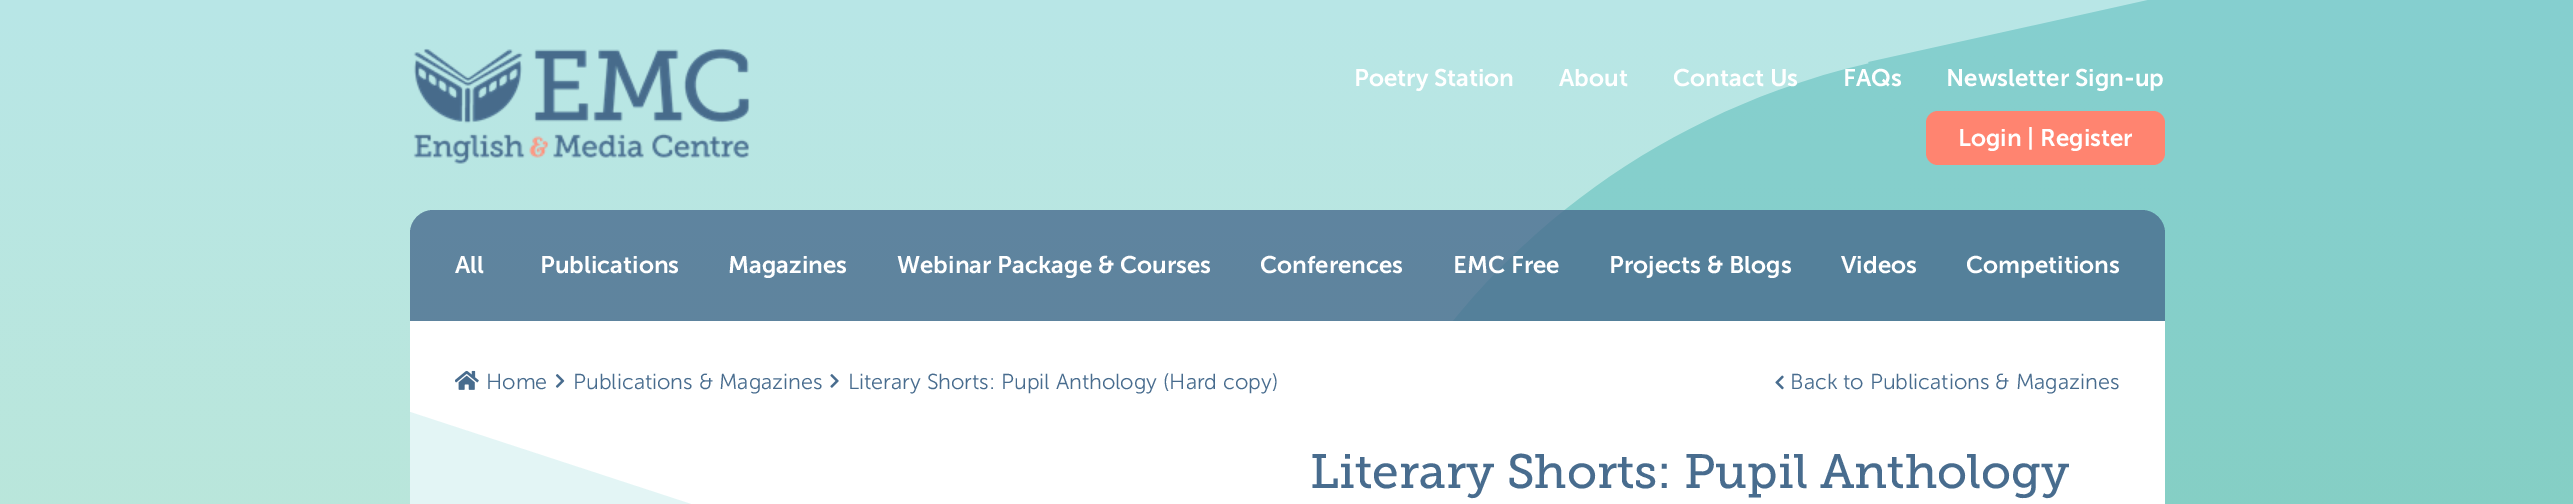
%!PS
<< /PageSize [2573 504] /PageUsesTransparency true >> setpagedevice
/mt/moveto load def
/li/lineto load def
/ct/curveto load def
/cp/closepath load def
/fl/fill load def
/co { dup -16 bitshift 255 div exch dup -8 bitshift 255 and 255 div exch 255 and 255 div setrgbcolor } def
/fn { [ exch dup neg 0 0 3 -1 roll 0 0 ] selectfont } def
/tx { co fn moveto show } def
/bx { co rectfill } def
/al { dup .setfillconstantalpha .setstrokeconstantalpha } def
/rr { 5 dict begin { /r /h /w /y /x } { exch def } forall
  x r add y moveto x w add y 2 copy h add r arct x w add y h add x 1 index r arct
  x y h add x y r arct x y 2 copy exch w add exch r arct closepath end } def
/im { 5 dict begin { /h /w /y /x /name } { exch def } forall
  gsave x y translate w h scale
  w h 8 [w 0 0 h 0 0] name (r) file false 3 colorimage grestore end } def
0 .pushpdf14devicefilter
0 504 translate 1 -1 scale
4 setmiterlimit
0 0 2573 504 16#FFFFFF bx
(media/1.raw) 0 0 2573 504 im
(media/2.raw) 413 48 337 116 im
16#FF8470 co
1926 111 239 54 12 rr fl
0.8 al
16#486C8E co
433 210 mt 2142 210 li 2154.5 210 2165 220.5 2165 233 ct 2165 321 li 410 321 li 410 233 li 410 220.5 420.5 210 433 210 ct cp fl
1 al
410 321 1755 183 16#FFFFFF bx
16#E3F5F5 co
410 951 mt 410 412 li 749 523 li 819 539 875 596 887 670 ct 888 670 li 887 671 li 902 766 838 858 743 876 ct cp fl
(media/3.raw) 455 370 24 20 im
(media/4.raw) 555 374 10 14 im
(media/5.raw) 830 374 9 14 im
(media/6.raw) 1775 375 9 15 im
(Poetry Station) 1354 86 /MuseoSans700-SemiBold 24 16#FFFFFF tx
(About) 1559 86 /MuseoSans700-SemiBold 24 16#FFFFFF tx
(Contact Us) 1673 86 /MuseoSans700-SemiBold 24 16#FFFFFF tx
(FAQs) 1843 86 /MuseoSans700-SemiBold 24 16#FFFFFF tx
(Newsletter Sign-up) 1946 86 /MuseoSans700-SemiBold 24 16#FFFFFF tx
(Login | Register) 1958 146 /MuseoSans700-SemiBold 24 16#FFFFFF tx
(All) 455 273 /MuseoSans700-SemiBold 24 16#FFFFFF tx
(Publications) 540 273 /MuseoSans700-SemiBold 24 16#FFFFFF tx
(Magazines) 728 273 /MuseoSans700-SemiBold 24 16#FFFFFF tx
(Webinar Package & Courses) 897 273 /MuseoSans700-SemiBold 24 16#FFFFFF tx
(Conferences) 1260 273 /MuseoSans700-SemiBold 24 16#FFFFFF tx
(EMC Free) 1453 273 /MuseoSans700-SemiBold 24 16#FFFFFF tx
(Projects & Blogs) 1609 273 /MuseoSans700-SemiBold 24 16#FFFFFF tx
(Videos) 1841 273 /MuseoSans700-SemiBold 24 16#FFFFFF tx
(Competitions) 1966 273 /MuseoSans700-SemiBold 24 16#FFFFFF tx
(Home) 486 389 /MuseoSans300-Light 21.6 16#486C8E tx
(Publications & Magazines) 573 389 /MuseoSans300-Light 21.6 16#486C8E tx
(Literary Shorts: Pupil Anthology \(Hard copy\)) 848 389 /MuseoSans300-Light 21.6 16#486C8E tx
(Back to Publications & Magazines) 1790 389 /MuseoSans300-Light 21.6 16#486C8E tx
(Literary Shorts: Pupil Anthology) 1310 488 /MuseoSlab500-Regular 48 16#486C8E tx
.poppdf14devicefilter showpage
